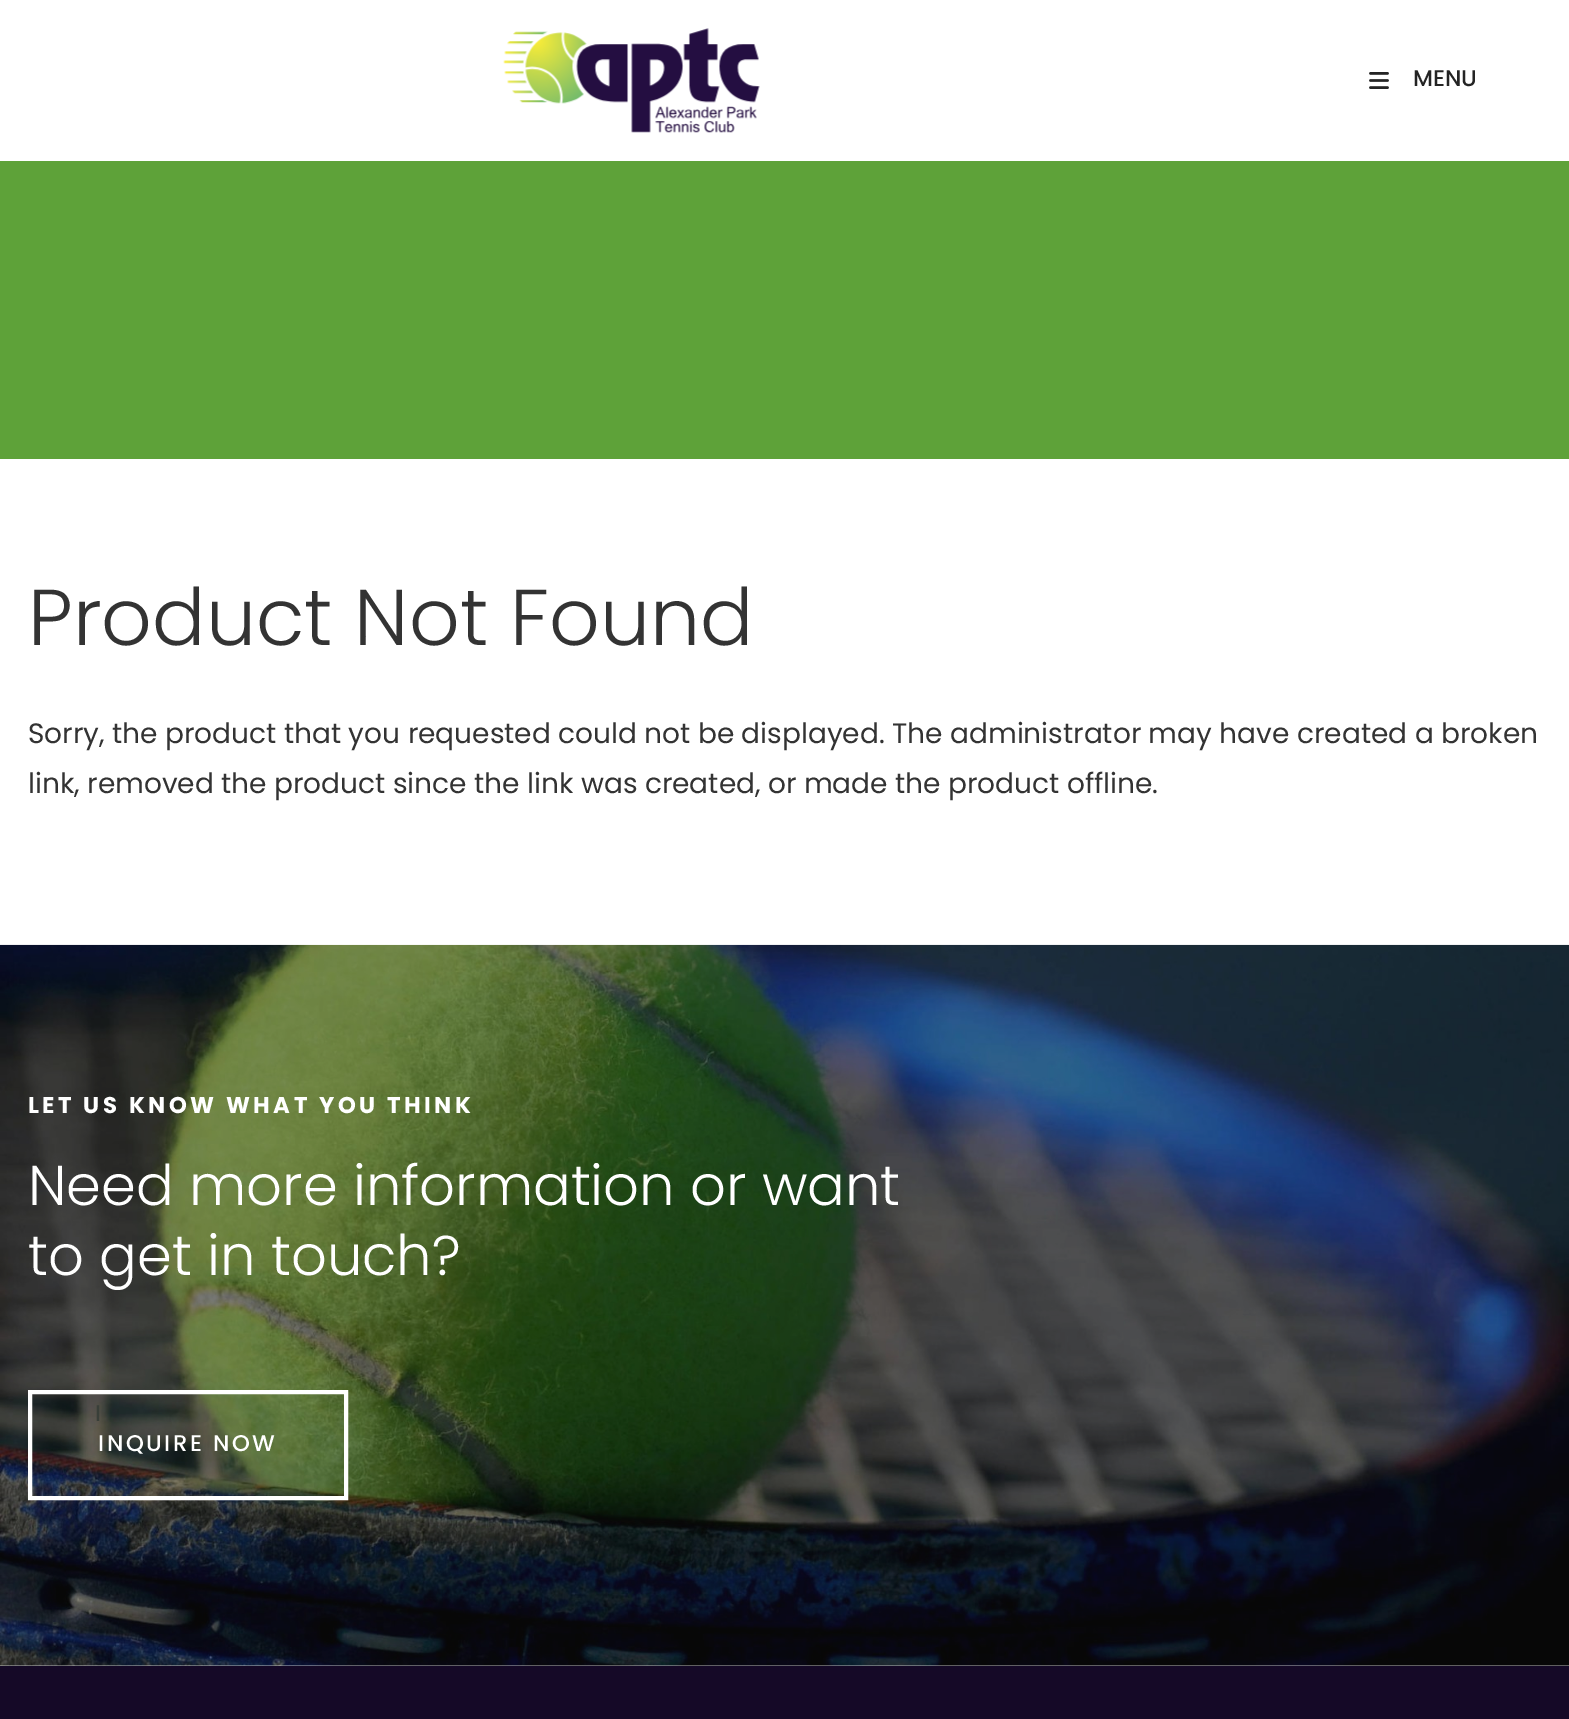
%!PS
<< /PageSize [1569 1719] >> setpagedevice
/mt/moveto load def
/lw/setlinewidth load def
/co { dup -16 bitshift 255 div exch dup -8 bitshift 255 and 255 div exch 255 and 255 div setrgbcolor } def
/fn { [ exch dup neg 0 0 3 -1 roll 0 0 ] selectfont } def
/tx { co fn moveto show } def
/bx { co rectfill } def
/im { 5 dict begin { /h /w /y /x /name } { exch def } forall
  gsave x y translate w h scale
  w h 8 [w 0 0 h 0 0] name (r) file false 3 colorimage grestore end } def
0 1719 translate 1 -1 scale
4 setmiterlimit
0 0 1569 1719 16#FFFFFF bx
0 1665 1569 1 16#D3D3D3 bx
(media/1.raw) 503 28 257 105 im
(media/2.raw) 1369 72 20 17 im
0 161 1569 298 16#5EA239 bx
(media/3.raw) 0 944 1569 722 im
16#FFFFFF co
4 lw
30 1392 316 106 rectstroke
0 1666 1569 53 16#150927 bx
(MENU) 1413 86 /Poppins-Medium 22.75 16#242424 tx
(Product Not Found) 28 645 /Poppins-Light 79.25 16#333333 tx
(Sorry, the product that you requested could not be displayed. The administrator may have created a broken) 28 743 /Poppins-Regular 28 16#333333 tx
(link, removed the product since the link was created, or made the product offline.) 28 793 /Poppins-Regular 28 16#333333 tx
/Poppins-Bold 22.75 fn
16#FFFFFF co
28 1113 mt 3.5 0 (LET US KNOW WHAT YOU THINK) ashow
(Need more information or want) 28 1205 /Poppins-Light 56 16#FFFFFF tx
(to get in touch?) 28 1275 /Poppins-Light 56 16#FFFFFF tx
/Poppins-Medium 22.75 fn
16#393F39 co
95 1421 mt 2.6 0 (I) ashow
16#FFFFFF co
98 1451 mt 2.6 0 (INQUIRE NOW) ashow
showpage
